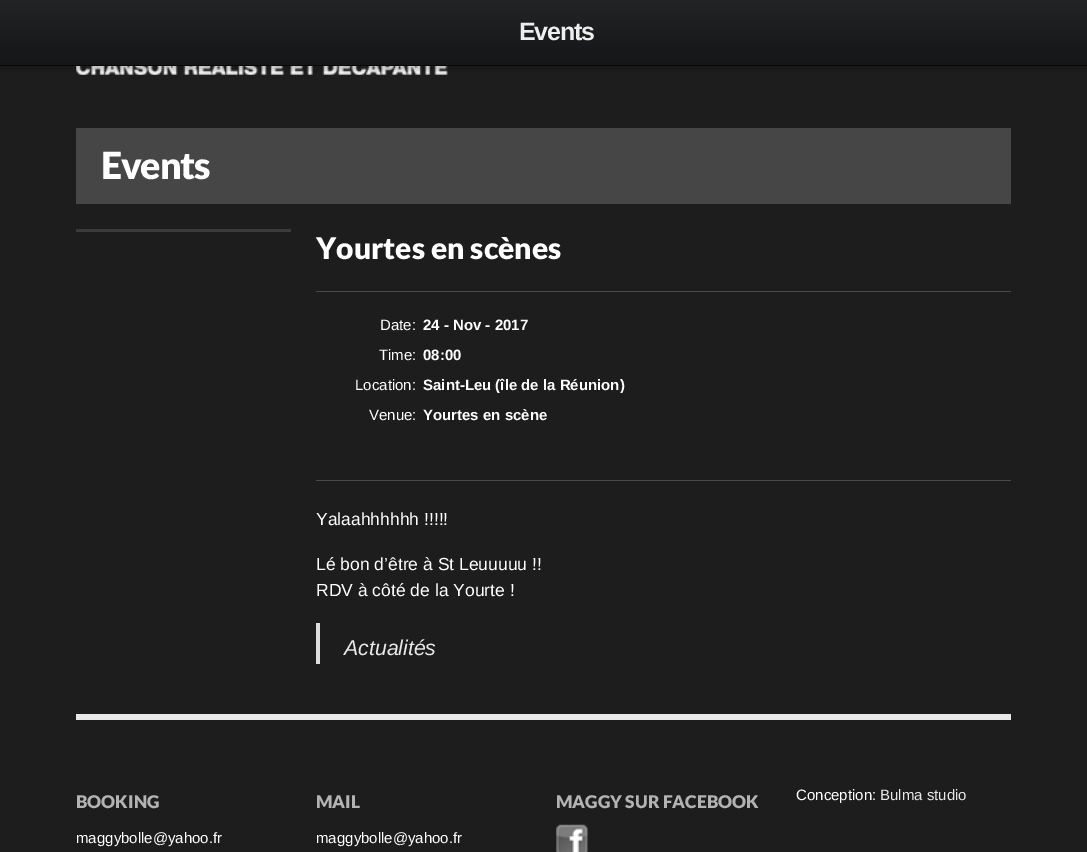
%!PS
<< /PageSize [1087 852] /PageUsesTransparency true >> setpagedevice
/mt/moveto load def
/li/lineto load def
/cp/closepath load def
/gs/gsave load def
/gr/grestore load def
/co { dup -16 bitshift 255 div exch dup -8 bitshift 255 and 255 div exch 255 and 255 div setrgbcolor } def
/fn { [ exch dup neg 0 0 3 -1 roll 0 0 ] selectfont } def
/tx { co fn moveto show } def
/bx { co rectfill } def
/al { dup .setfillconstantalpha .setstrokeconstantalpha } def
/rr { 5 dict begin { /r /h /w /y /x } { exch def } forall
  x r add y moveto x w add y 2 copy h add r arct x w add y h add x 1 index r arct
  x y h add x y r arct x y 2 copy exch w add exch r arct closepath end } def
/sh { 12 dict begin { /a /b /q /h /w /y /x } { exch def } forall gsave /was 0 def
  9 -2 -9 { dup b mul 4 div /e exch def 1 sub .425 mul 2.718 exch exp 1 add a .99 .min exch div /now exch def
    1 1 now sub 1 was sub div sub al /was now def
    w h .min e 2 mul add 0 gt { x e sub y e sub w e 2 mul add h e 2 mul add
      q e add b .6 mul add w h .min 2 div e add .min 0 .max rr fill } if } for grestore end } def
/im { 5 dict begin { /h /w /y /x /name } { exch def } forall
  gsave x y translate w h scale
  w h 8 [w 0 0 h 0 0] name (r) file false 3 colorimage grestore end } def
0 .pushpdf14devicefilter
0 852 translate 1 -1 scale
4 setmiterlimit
0 0 1087 852 16#1D1D1D bx
(media/1.raw) 76 66 372 9 im
16#000000 co
0 5 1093 66 0 2 .2 sh
gs 0 0 mt 1087 0 li 1087 65 li 0 65 li cp clip newpath
<< /ShadingType 2 /ColorSpace /DeviceRGB /Coords [0 65 0 0] /Extend [true true] /Function << /FunctionType 3 /Domain [0 1] /Functions [<< /FunctionType 2 /Domain [0 1] /C0 [.078 .086 .09] /C1 [.078 .086 .09] /N 1 >> << /FunctionType 2 /Domain [0 1] /C0 [.078 .086 .09] /C1 [.133 .141 .149] /N 1 >>] /Bounds [.01] /Encode [0 1 0 1] >> >> shfill gr
0 65 1087 1 16#070708 bx
76 128 935 76 16#464646 bx
76 229 215 3 16#3B3B3B bx
316 291 695 1 16#4A4A4A bx
316 480 695 1 16#4A4A4A bx
316 623 4 41 16#DDDDDD bx
76 714 935 6 16#E8E8E8 bx
(media/2.raw) 556 824 32 28 im
/LiberationSans-Bold 25 fn
16#EEEEEE co
519 40 mt -1.25 0 (Events) ashow
/Lato-Black 37.5 fn
16#FFFFFF co
101 179 mt -1.25 0 (Events) ashow
(Yourtes en scènes) 316 259 /Lato-Black 30 16#FFFFFF tx
(Date:) 380 330 /LiberationSans-Regular 15 16#FFFFFF tx
(24 - Nov - 2017) 423 330 /LiberationSans-Bold 15 16#FFFFFF tx
(Time:) 379 360 /LiberationSans-Regular 15 16#FFFFFF tx
(08:00) 423 360 /LiberationSans-Bold 15 16#FFFFFF tx
(Location:) 355 390 /LiberationSans-Regular 15 16#FFFFFF tx
(Saint-Leu \(île de la Réunion\)) 423 390 /LiberationSans-Bold 15 16#FFFFFF tx
(Venue:) 369 420 /LiberationSans-Regular 15 16#FFFFFF tx
(Yourtes en scène) 423 420 /LiberationSans-Bold 15 16#FFFFFF tx
(Yalaahhhhhh !!!!!) 316 525 /LiberationSans-Regular 17.5 16#FFFFFF tx
(Lé bon d’être à St Leuuuuu !!) 316 570 /LiberationSans-Regular 17.5 16#FFFFFF tx
(RDV à côté de la Yourte !) 316 596 /LiberationSans-Regular 17.5 16#FFFFFF tx
(Actualités) 344 655 /LiberationSans-Italic 21.25 16#E8E8E8 tx
(BOOKING) 76 808 /Lato-Black 17.5 16#B3B3B3 tx
(maggybolle@yahoo.fr) 76 843 /LiberationSans-Regular 15 16#FFFFFF tx
(MAIL) 316 808 /Lato-Black 17.5 16#B3B3B3 tx
(maggybolle@yahoo.fr) 316 843 /LiberationSans-Regular 15 16#FFFFFF tx
(MAGGY SUR FACEBOOK) 556 808 /Lato-Black 17.5 16#B3B3B3 tx
(Conception:) 796 800 /LiberationSans-Regular 15 16#FFFFFF tx
(Bulma studio) 880 800 /LiberationSans-Regular 15 16#E8E8E8 tx
.poppdf14devicefilter showpage
